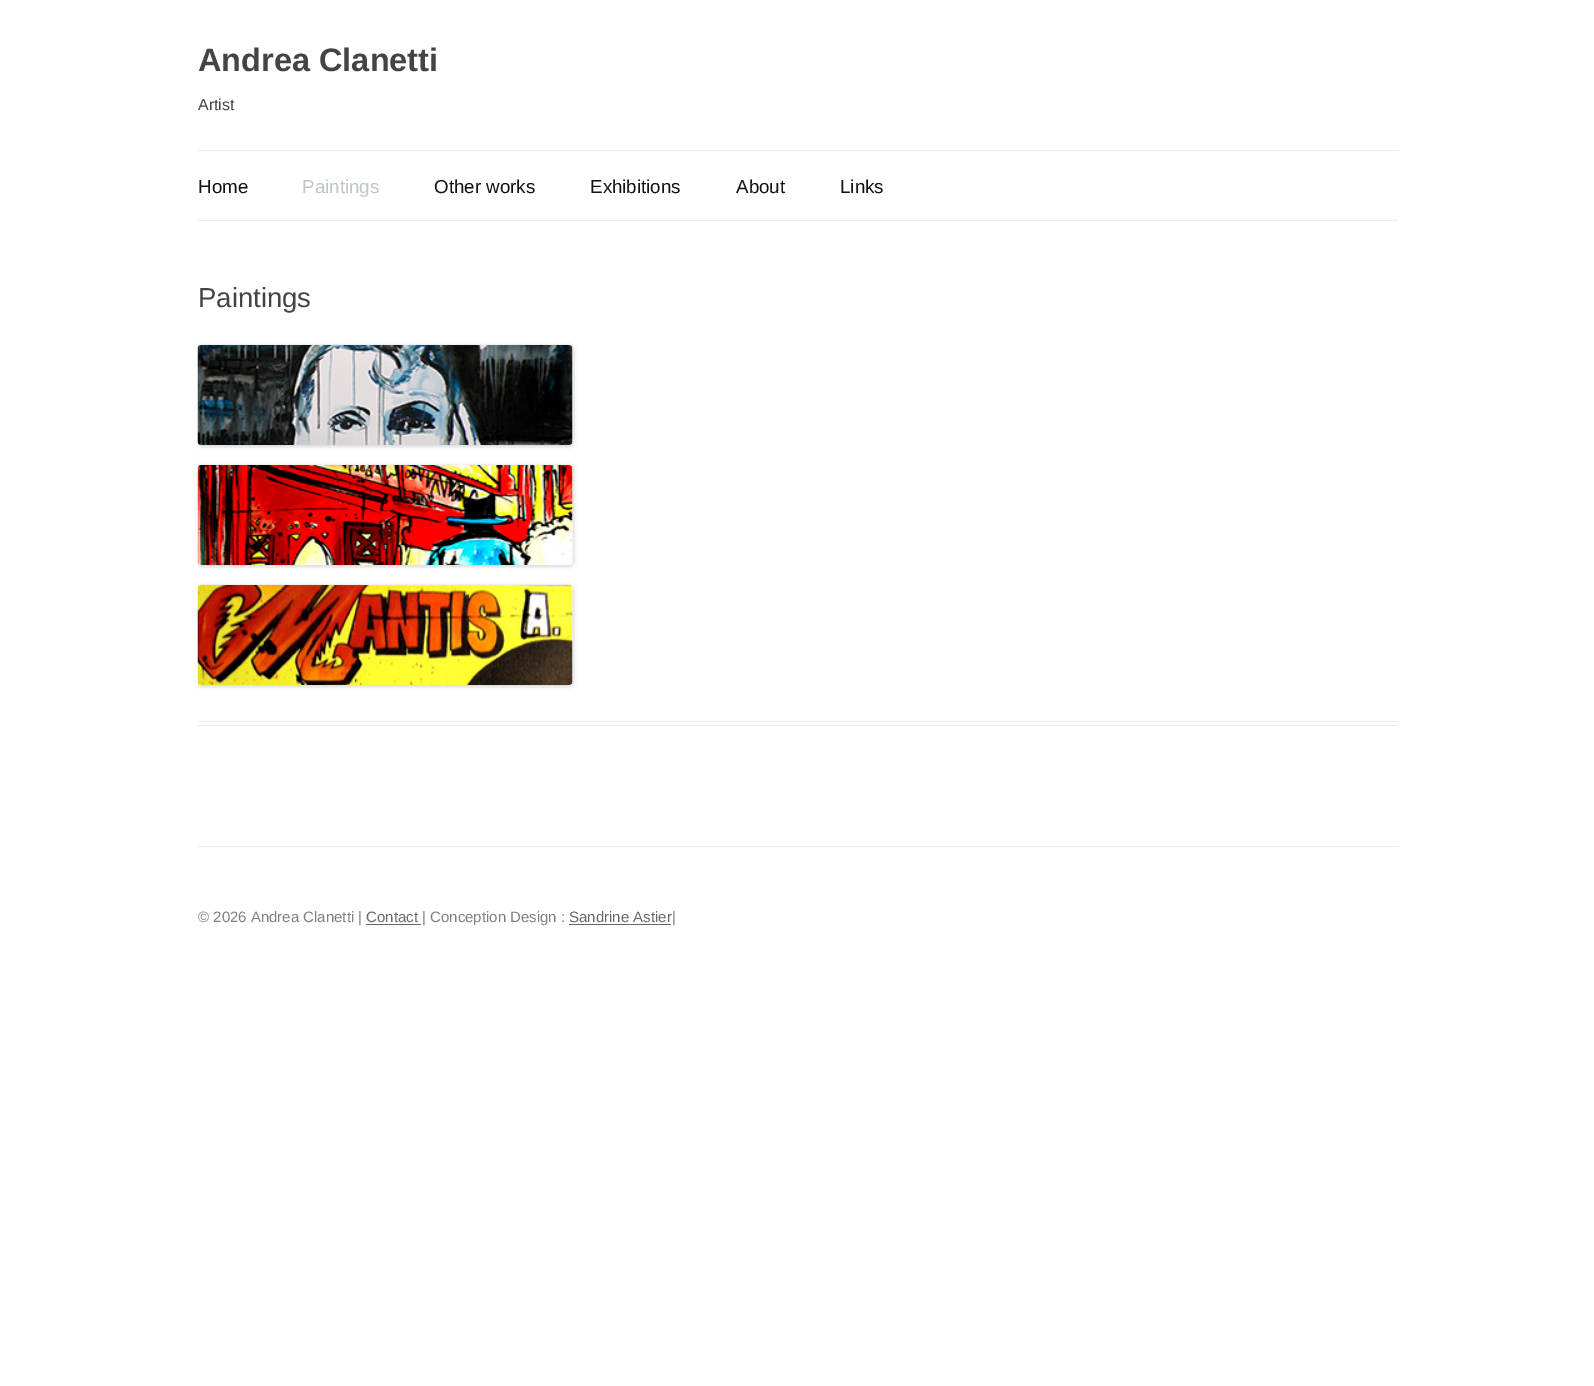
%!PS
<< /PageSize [1594 1386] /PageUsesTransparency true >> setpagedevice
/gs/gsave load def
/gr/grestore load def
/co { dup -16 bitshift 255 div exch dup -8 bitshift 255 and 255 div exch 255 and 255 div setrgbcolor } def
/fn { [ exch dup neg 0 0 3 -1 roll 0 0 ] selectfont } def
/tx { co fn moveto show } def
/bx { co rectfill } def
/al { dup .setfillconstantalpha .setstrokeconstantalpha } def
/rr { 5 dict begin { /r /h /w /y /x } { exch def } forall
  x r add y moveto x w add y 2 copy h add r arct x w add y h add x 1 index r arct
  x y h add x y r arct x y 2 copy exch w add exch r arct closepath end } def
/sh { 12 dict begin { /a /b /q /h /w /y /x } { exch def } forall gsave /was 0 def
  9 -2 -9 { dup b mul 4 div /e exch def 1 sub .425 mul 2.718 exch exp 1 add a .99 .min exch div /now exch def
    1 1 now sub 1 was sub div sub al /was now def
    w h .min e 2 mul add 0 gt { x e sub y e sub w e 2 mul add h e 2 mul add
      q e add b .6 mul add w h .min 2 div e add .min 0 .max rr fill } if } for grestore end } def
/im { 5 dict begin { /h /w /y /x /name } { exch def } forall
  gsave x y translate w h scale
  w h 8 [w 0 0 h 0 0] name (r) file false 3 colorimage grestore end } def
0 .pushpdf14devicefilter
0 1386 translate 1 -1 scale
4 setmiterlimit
0 0 1594 1386 16#FFFFFF bx
198 150 1200 1 16#EDEDED bx
198 220 1200 1 16#EDEDED bx
198 721 1200 1 16#EDEDED bx
198 725 1200 1 16#EDEDED bx
gs
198 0 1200 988 rectclip
16#000000 co
198 346 375 100 4 2.5 .2 sh
gr
(media/1.raw) 197 345 376 100 im
gs
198 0 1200 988 rectclip
16#000000 co
198 466 375 100 4 2.5 .2 sh
gr
(media/2.raw) 197 465 376 100 im
gs
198 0 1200 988 rectclip
16#000000 co
198 586 375 100 4 2.5 .2 sh
gr
(media/3.raw) 197 585 376 100 im
198 846 1200 1 16#EDEDED bx
366 924 55 1 16#686868 bx
569 924 102 1 16#686868 bx
(Andrea Clanetti) 198 71 /LiberationSans-Bold 32.5 16#444444 tx
(Artist) 198 110 /LiberationSans-Regular 16 16#444444 tx
(Home) 198 193 /LiberationSans-Regular 18.75 16#131212 tx
(Paintings) 302 193 /LiberationSans-Regular 18.75 16#BDC5C8 tx
(Other works) 434 193 /LiberationSans-Regular 18.75 16#131212 tx
(Exhibitions) 590 193 /LiberationSans-Regular 18.75 16#131212 tx
(About) 736 193 /LiberationSans-Regular 18.75 16#131212 tx
(Links) 840 193 /LiberationSans-Regular 18.75 16#131212 tx
(Paintings) 198 307 /LiberationSans-Regular 27.5 16#444444 tx
gs
198 0 1200 988 rectclip
(© 2026 Andrea Clanetti |) 198 922 /LiberationSans-Regular 15 16#808080 tx
gr
(Contact) 366 922 /LiberationSans-Regular 15 16#686868 tx
(| Conception Design :) 422 922 /LiberationSans-Regular 15 16#808080 tx
(Sandrine Astier) 569 922 /LiberationSans-Regular 15 16#686868 tx
(|) 672 922 /LiberationSans-Regular 15 16#808080 tx
.poppdf14devicefilter showpage
